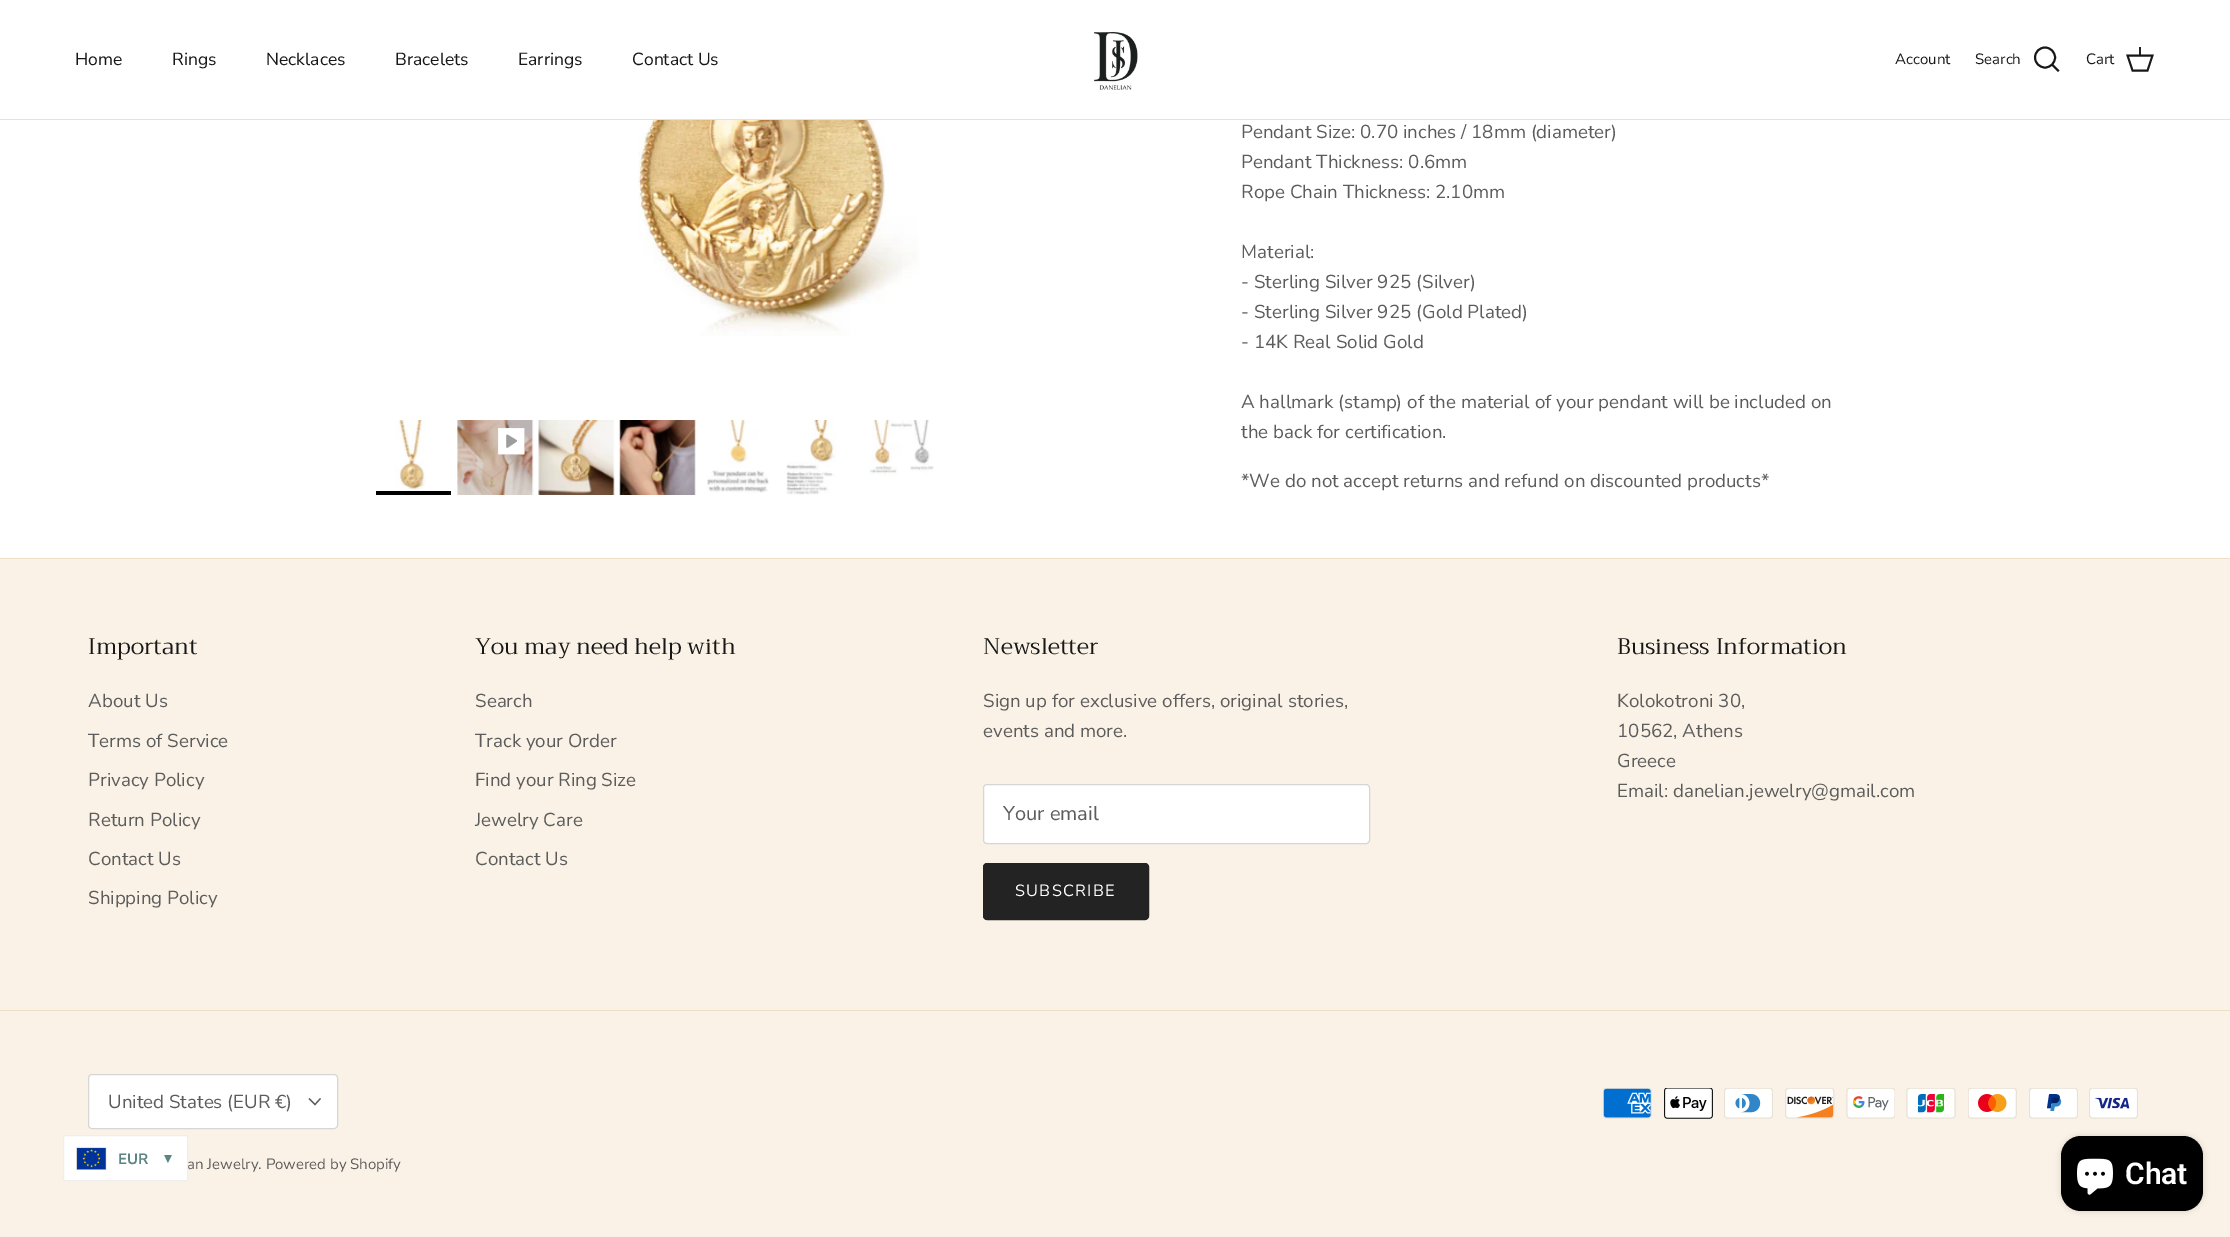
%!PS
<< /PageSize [2230 1237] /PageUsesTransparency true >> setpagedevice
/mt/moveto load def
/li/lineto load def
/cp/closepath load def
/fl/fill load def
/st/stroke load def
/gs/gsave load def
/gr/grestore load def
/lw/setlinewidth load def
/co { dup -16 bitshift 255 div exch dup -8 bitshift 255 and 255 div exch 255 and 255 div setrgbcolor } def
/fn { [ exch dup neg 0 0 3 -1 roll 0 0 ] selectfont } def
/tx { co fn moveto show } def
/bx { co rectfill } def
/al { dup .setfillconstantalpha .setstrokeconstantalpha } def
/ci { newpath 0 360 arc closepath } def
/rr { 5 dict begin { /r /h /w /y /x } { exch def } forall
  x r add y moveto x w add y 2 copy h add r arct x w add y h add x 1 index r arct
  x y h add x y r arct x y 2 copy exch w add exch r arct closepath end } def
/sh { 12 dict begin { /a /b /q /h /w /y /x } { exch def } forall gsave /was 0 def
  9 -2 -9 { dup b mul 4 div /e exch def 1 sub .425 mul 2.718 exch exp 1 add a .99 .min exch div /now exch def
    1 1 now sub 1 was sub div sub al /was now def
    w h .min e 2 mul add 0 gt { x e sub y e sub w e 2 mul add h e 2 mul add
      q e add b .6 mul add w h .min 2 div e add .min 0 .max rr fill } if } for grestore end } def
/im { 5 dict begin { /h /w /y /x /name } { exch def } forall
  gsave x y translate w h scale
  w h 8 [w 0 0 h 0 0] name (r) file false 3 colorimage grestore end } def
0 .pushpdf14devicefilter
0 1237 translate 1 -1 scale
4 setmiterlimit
0 0 2230 1237 16#FFFFFF bx
0 119 2230 1 16#DFE3E8 bx
(media/1.raw) 1093 31 45 59 im
16#171717 co
1.9 lw
2045 57.5 10 ci st
2 setlinecap
2052.5 65 mt 2058 70.5 li st
0 setlinecap
2127.5 55.5 mt 2152.5 55.5 li 2147.5 70.5 li 2132.5 70.5 li cp st
0.95 al
2139 47 2 9 16#171717 bx
1 al
(media/2.raw) 638 120 281 216 im
(media/3.raw) 395 420 31 71 im
376 491 75 4 16#000000 bx
(media/4.raw) 457 420 77 75 im
(media/5.raw) 498 428 27 27 im
(media/6.raw) 538 420 77 75 im
(media/7.raw) 619 420 77 75 im
(media/8.raw) 707 420 62 73 im
(media/9.raw) 786 420 50 75 im
(media/10.raw) 869 420 65 56 im
0 559 2230 678 16#FAF2E6 bx
0 558 2230 1 16#EFDFC7 bx
16#FFFFFF co
983.5 784.5 386 59 3.5 rr gs fl gr
16#D6D6D6 co
1 lw
st
16#232323 co
983.5 863.5 165 56 3.5 rr gs fl gr
st
0 1010 2230 1 16#EFDFC7 bx
16#FFFFFF co
88.5 1074.5 249 54 3.5 rr gs fl gr
16#D6D6D6 co
st
16#5C5C5C co
1.2 lw
320.5 1098.5 mt 315 1104.5 li 309 1098.5 li st
(media/11.raw) 1603 1088 49 31 im
(media/12.raw) 1664 1088 49 31 im
(media/13.raw) 1724 1088 49 31 im
(media/14.raw) 1785 1088 50 31 im
(media/15.raw) 1846 1088 49 31 im
(media/16.raw) 1906 1088 50 31 im
(media/17.raw) 1968 1088 49 31 im
(media/18.raw) 2029 1088 49 31 im
(media/19.raw) 2089 1088 49 31 im
64 1136 123 44 16#FFFFFF bx
(media/20.raw) 76 1147 31 23 im
16#000000 co
2061 1136 142 75 20 3 .15 sh
2061 1136 142 75 20 rr fl
(media/21.raw) 2077 1158 36 37 im
(Home) 75 65 /NunitoSans-Regular 17.5 16#171717 tx
(Rings) 172 65 /NunitoSans-Regular 17.5 16#171717 tx
(Necklaces) 266 65 /NunitoSans-Regular 17.5 16#171717 tx
(Bracelets) 395 65 /NunitoSans-Regular 17.5 16#171717 tx
(Earrings) 518 65 /NunitoSans-Regular 17.5 16#171717 tx
(Contact Us) 632 65 /NunitoSans-Regular 17.5 16#171717 tx
(Account) 1895 64 /NunitoSans-Regular 15 16#171717 tx
(Search) 1975 64 /NunitoSans-Regular 15 16#171717 tx
(Cart) 2086 64 /NunitoSans-Regular 15 16#171717 tx
(Pendant Size: 0.70 inches / 18mm \(diameter\)) 1241 138 /NunitoSans-Regular 18.75 16#5C5C5C tx
(Pendant Thickness: 0.6mm) 1241 168 /NunitoSans-Regular 18.75 16#5C5C5C tx
(Rope Chain Thickness: 2.10mm) 1241 198 /NunitoSans-Regular 18.75 16#5C5C5C tx
(Material:) 1241 258 /NunitoSans-Regular 18.75 16#5C5C5C tx
(- Sterling Silver 925 \(Silver\)) 1241 288 /NunitoSans-Regular 18.75 16#5C5C5C tx
(- Sterling Silver 925 \(Gold Plated\)) 1241 318 /NunitoSans-Regular 18.75 16#5C5C5C tx
(- 14K Real Solid Gold) 1241 348 /NunitoSans-Regular 18.75 16#5C5C5C tx
(A hallmark \(stamp\) of the material of your pendant will be included on) 1241 408 /NunitoSans-Regular 18.75 16#5C5C5C tx
(the back for certification.) 1241 438 /NunitoSans-Regular 18.75 16#5C5C5C tx
(*We do not accept returns and refund on discounted products*) 1241 487 /NunitoSans-Regular 18.75 16#5C5C5C tx
(Important) 88 654 /Trirong-Regular 22.5 16#171717 tx
(About Us) 88 707 /NunitoSans-Regular 18.75 16#5C5C5C tx
(Terms of Service) 88 747 /NunitoSans-Regular 18.75 16#5C5C5C tx
(Privacy Policy) 88 786 /NunitoSans-Regular 18.75 16#5C5C5C tx
(Return Policy) 88 826 /NunitoSans-Regular 18.75 16#5C5C5C tx
(Contact Us) 88 865 /NunitoSans-Regular 18.75 16#5C5C5C tx
(Shipping Policy) 88 904 /NunitoSans-Regular 18.75 16#5C5C5C tx
(You may need help with) 475 654 /Trirong-Regular 22.5 16#171717 tx
(Search) 475 707 /NunitoSans-Regular 18.75 16#5C5C5C tx
(Track your Order) 475 747 /NunitoSans-Regular 18.75 16#5C5C5C tx
(Find your Ring Size) 475 786 /NunitoSans-Regular 18.75 16#5C5C5C tx
(Jewelry Care) 475 826 /NunitoSans-Regular 18.75 16#5C5C5C tx
(Contact Us) 475 865 /NunitoSans-Regular 18.75 16#5C5C5C tx
(Newsletter) 983 654 /Trirong-Regular 22.5 16#171717 tx
(Sign up for exclusive offers, original stories,) 983 707 /NunitoSans-Regular 18.75 16#5C5C5C tx
(events and more.) 983 737 /NunitoSans-Regular 18.75 16#5C5C5C tx
(Your email) 1003 820 /NunitoSans-Regular 20 16#5C5C5C tx
/NunitoSans-Regular 16.25 fn
16#FFFFFF co
1015 896 mt 1.25 0 (SUBSCRIBE) ashow
(Business Information) 1617 654 /Trirong-Regular 22.5 16#171717 tx
(Kolokotroni 30,) 1617 707 /NunitoSans-Regular 18.75 16#5C5C5C tx
(10562, Athens) 1617 737 /NunitoSans-Regular 18.75 16#5C5C5C tx
(Greece) 1617 767 /NunitoSans-Regular 18.75 16#5C5C5C tx
(Email: danelian.jewelry@gmail.com) 1617 797 /NunitoSans-Regular 18.75 16#5C5C5C tx
(United States \(EUR €\)) 108 1108 /NunitoSans-Regular 18.75 16#5C5C5C tx
(an Jewelry. Powered by Shopify) 187 1169 /NunitoSans-Regular 15 16#5C5C5C tx
16#EEEEEE co
1 lw
63.5 1135.5 124 45 rectstroke
(EUR) 118 1164 /NunitoSans-Bold 15 16#5B8583 tx
(▾) 164 1163 /DejaVuSans-Bold 15 16#5B8583 tx
(Chat) 2125 1184 /Roboto-SemiBold 30 16#FFFFFF tx
.poppdf14devicefilter showpage
